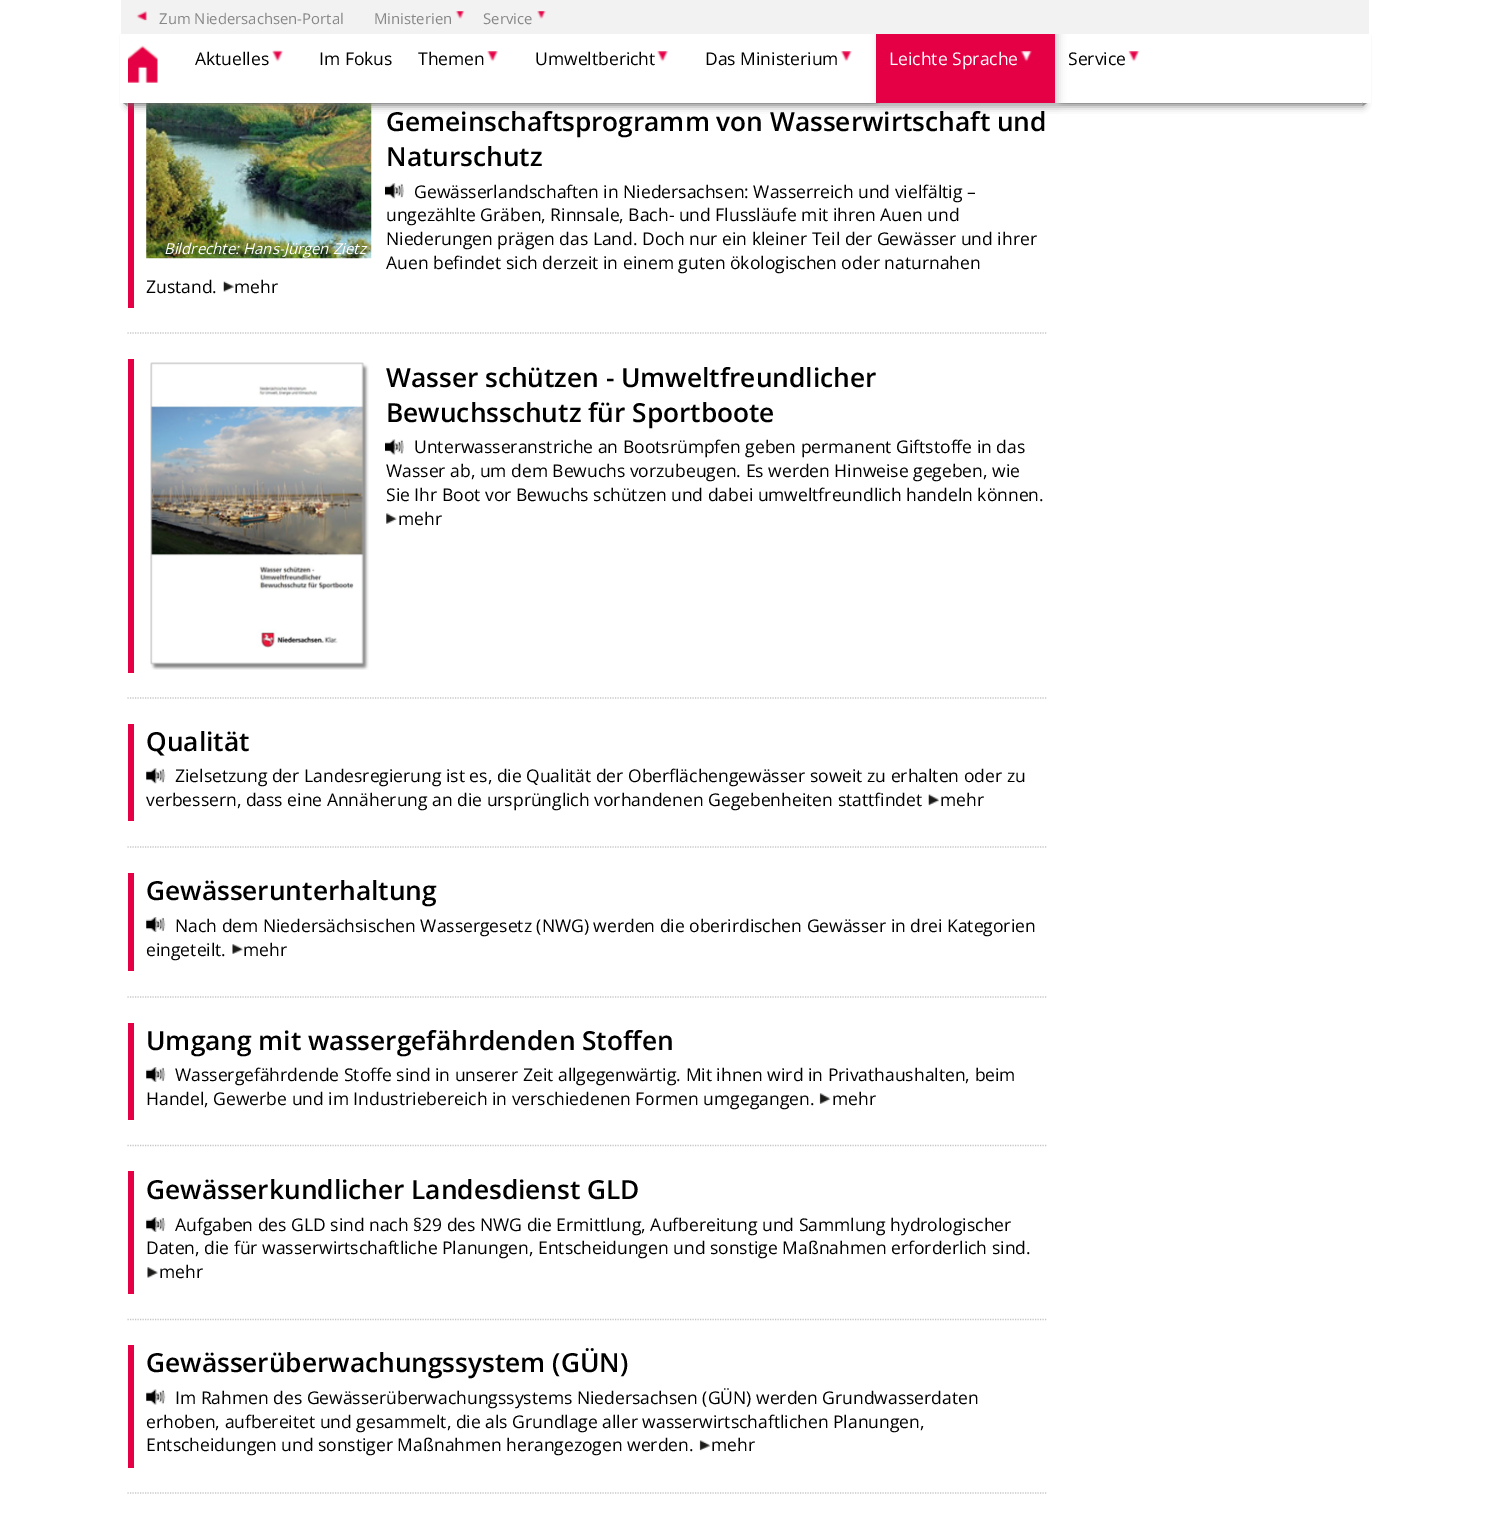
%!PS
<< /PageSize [1490 1513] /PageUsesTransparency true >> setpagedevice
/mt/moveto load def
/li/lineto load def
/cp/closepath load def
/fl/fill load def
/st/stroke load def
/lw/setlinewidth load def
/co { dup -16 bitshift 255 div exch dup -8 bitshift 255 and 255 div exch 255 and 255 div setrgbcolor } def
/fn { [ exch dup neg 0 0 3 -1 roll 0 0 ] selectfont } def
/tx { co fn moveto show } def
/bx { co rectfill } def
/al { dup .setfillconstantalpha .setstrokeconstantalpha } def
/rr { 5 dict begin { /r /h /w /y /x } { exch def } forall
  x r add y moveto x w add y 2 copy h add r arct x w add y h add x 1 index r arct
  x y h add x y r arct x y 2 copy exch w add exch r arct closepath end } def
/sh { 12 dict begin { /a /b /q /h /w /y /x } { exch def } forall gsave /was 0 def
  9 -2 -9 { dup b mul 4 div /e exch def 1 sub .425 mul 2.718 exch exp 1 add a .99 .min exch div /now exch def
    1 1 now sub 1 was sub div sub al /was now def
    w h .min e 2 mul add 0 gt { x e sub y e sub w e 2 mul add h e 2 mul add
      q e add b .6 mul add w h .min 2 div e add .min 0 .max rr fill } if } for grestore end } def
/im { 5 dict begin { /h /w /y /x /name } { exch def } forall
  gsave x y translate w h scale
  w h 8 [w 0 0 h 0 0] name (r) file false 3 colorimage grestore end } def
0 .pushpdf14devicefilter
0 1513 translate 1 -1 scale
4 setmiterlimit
0 0 1490 1513 16#FFFFFF bx
128 103 6 205 16#E50046 bx
(media/12.raw) 146 103 226 156 im
16#666666 co
128 36 1235 69 0 4 1 sh
16#90908F co
127.5 102.5 mt 127.5 106 li 122.5 102.5 li cp fl
120 29 8 74 16#FFFFFF bx
128 34 1235 69 16#FFFFFF bx
16#CCCCCC co
879 33 179 72 0 4 1 sh
16#90908F co
1362.5 106 mt 1362.5 102.5 li 1367.5 102.5 li cp fl
1363 29 8 74 16#FFFFFF bx
121 0 1248 34 16#F2F2F2 bx
(media/1.raw) 136 11 11 10 im
(media/2.raw) 455 11 10 8 im
(media/3.raw) 537 11 9 8 im
(media/4.raw) 128 45 30 38 im
(media/5.raw) 272 50 11 12 im
(media/6.raw) 487 51 11 11 im
(media/6.raw) 657 51 11 11 im
(media/7.raw) 840 51 12 11 im
876 34 179 69 16#E50046 bx
(media/8.raw) 1020 51 12 11 im
(media/9.raw) 1128 51 12 11 im
(media/10.raw) 385 183 19 16 im
(media/11.raw) 223 281 11 11 im
16#C6C6C6 co
1.2 lw
[1.25 1.25] 0 setdash
127.5 333 mt 1047.5 333 li st
128 359 6 314 16#E50046 bx
(media/13.raw) 150 362 219 308 im
(media/14.raw) 385 439 19 16 im
(media/15.raw) 386 513 11 11 im
16#C6C6C6 co
127.5 698 mt 1047.5 698 li st
128 724 6 97 16#E50046 bx
(media/16.raw) 146 768 20 16 im
(media/17.raw) 928 794 11 12 im
16#C6C6C6 co
127.5 847 mt 1047.5 847 li st
128 873 6 98 16#E50046 bx
(media/18.raw) 146 917 20 15 im
(media/19.raw) 232 944 11 10 im
16#C6C6C6 co
127.5 997 mt 1047.5 997 li st
128 1023 6 97 16#E50046 bx
(media/18.raw) 146 1067 20 15 im
(media/20.raw) 819 1093 12 11 im
16#C6C6C6 co
127.5 1145.5 mt 1047.5 1145.5 li st
128 1171 6 123 16#E50046 bx
(media/18.raw) 146 1217 20 15 im
(media/21.raw) 147 1267 11 11 im
16#C6C6C6 co
127.5 1319.5 mt 1047.5 1319.5 li st
128 1345 6 123 16#E50046 bx
(media/22.raw) 146 1389 20 16 im
(media/23.raw) 699 1440 12 11 im
16#C6C6C6 co
127.5 1493 mt 1047.5 1493 li st
(Zum Niedersachsen-Portal) 159 24 /OpenSans-Regular 14.9 16#878787 tx
(Ministerien) 374 24 /OpenSans-Regular 14.9 16#878787 tx
(Service) 483 24 /OpenSans-Regular 14.9 16#878787 tx
(Aktuelles) 195 65 /OpenSans-Regular 17.5 16#000000 tx
(Im Fokus) 319 65 /OpenSans-Regular 17.5 16#000000 tx
(Themen) 418 65 /OpenSans-Regular 17.5 16#000000 tx
(Umweltbericht) 535 65 /OpenSans-Regular 17.5 16#000000 tx
(Das Ministerium) 705 65 /OpenSans-Regular 17.5 16#000000 tx
(Leichte Sprache) 889 65 /OpenSans-Regular 17.5 16#FFFFFF tx
(Service) 1068 65 /OpenSans-Regular 17.5 16#000000 tx
(Gemeinschaftsprogramm von Wasserwirtschaft und) 386 131 /OpenSans-SemiBold 26.25 16#000000 tx
(Naturschutz) 386 166 /OpenSans-SemiBold 26.25 16#000000 tx
(Gewässerlandschaften in Niedersachsen: Wasserreich und vielfältig –) 414 198 /OpenSans-Regular 17.5 16#000000 tx
(ungezählte Gräben, Rinnsale, Bach- und Flussläufe mit ihren Auen und) 386 221 /OpenSans-Regular 17.5 16#000000 tx
(Niederungen prägen das Land. Doch nur ein kleiner Teil der Gewässer und ihrer) 386 245 /OpenSans-Regular 17.5 16#000000 tx
(Auen befindet sich derzeit in einem guten ökologischen oder naturnahen) 386 269 /OpenSans-Regular 17.5 16#000000 tx
(Zustand.) 146 293 /OpenSans-Regular 17.5 16#000000 tx
(mehr) 234 293 /OpenSans-Regular 17.5 16#000000 tx
(Bildrechte: Hans-Jürgen Zietz) 164 254 /OpenSans-Italic 15 16#FFFFFF tx
(Wasser schützen - Umweltfreundlicher) 386 387 /OpenSans-SemiBold 26.25 16#000000 tx
(Bewuchsschutz für Sportboote) 386 422 /OpenSans-SemiBold 26.25 16#000000 tx
(Unterwasseranstriche an Bootsrümpfen geben permanent Giftstoffe in das) 414 453 /OpenSans-Regular 17.5 16#000000 tx
(Wasser ab, um dem Bewuchs vorzubeugen. Es werden Hinweise gegeben, wie) 386 477 /OpenSans-Regular 17.5 16#000000 tx
(Sie Ihr Boot vor Bewuchs schützen und dabei umweltfreundlich handeln können.) 386 501 /OpenSans-Regular 17.5 16#000000 tx
(mehr) 398 525 /OpenSans-Regular 17.5 16#000000 tx
(Qualität) 146 751 /OpenSans-SemiBold 26.25 16#000000 tx
(Zielsetzung der Landesregierung ist es, die Qualität der Oberflächengewässer soweit zu erhalten oder zu) 175 782 /OpenSans-Regular 17.5 16#000000 tx
(verbessern, dass eine Annäherung an die ursprünglich vorhandenen Gegebenheiten stattfindet) 146 806 /OpenSans-Regular 17.5 16#000000 tx
(mehr) 940 806 /OpenSans-Regular 17.5 16#000000 tx
(Gewässerunterhaltung) 146 900 /OpenSans-SemiBold 26.25 16#000000 tx
(Nach dem Niedersächsischen Wassergesetz \(NWG\) werden die oberirdischen Gewässer in drei Kategorien) 175 932 /OpenSans-Regular 17.5 16#000000 tx
(eingeteilt.) 146 956 /OpenSans-Regular 17.5 16#000000 tx
(mehr) 243 956 /OpenSans-Regular 17.5 16#000000 tx
(Umgang mit wassergefährdenden Stoffen) 146 1050 /OpenSans-SemiBold 26.25 16#000000 tx
(Wassergefährdende Stoffe sind in unserer Zeit allgegenwärtig. Mit ihnen wird in Privathaushalten, beim) 175 1081 /OpenSans-Regular 17.5 16#000000 tx
(Handel, Gewerbe und im Industriebereich in verschiedenen Formen umgegangen.) 146 1105 /OpenSans-Regular 17.5 16#000000 tx
(mehr) 832 1105 /OpenSans-Regular 17.5 16#000000 tx
(Gewässerkundlicher Landesdienst GLD) 146 1199 /OpenSans-SemiBold 26.25 16#000000 tx
(Aufgaben des GLD sind nach §29 des NWG die Ermittlung, Aufbereitung und Sammlung hydrologischer) 175 1231 /OpenSans-Regular 17.5 16#000000 tx
(Daten, die für wasserwirtschaftliche Planungen, Entscheidungen und sonstige Maßnahmen erforderlich sind.) 146 1254 /OpenSans-Regular 17.5 16#000000 tx
(mehr) 159 1278 /OpenSans-Regular 17.5 16#000000 tx
(Gewässerüberwachungssystem \(GÜN\)) 146 1372 /OpenSans-SemiBold 26.25 16#000000 tx
(Im Rahmen des Gewässerüberwachungssystems Niedersachsen \(GÜN\) werden Grundwasserdaten) 175 1404 /OpenSans-Regular 17.5 16#000000 tx
(erhoben, aufbereitet und gesammelt, die als Grundlage aller wasserwirtschaftlichen Planungen,) 146 1428 /OpenSans-Regular 17.5 16#000000 tx
(Entscheidungen und sonstiger Maßnahmen herangezogen werden.) 146 1451 /OpenSans-Regular 17.5 16#000000 tx
(mehr) 711 1451 /OpenSans-Regular 17.5 16#000000 tx
.poppdf14devicefilter showpage
